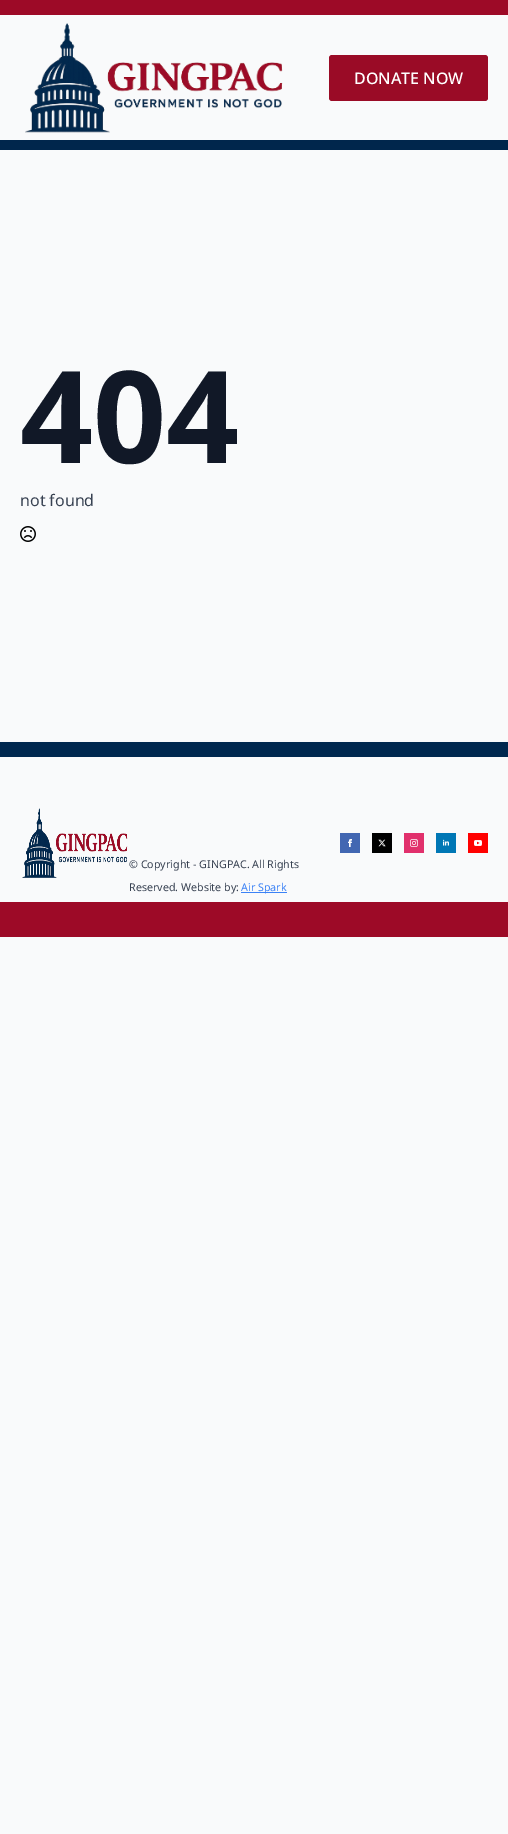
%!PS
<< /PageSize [508 1834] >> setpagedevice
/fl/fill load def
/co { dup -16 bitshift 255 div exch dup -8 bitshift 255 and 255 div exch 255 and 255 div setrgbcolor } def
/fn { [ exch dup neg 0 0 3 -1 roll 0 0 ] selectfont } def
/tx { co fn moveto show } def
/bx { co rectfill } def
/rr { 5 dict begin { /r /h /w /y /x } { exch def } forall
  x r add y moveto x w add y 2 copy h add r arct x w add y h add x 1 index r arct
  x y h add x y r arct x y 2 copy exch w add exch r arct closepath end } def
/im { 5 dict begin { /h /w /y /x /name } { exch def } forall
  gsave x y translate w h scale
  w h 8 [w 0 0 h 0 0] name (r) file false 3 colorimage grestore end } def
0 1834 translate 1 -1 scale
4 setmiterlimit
0 0 508 1834 16#F9FAFB bx
0 0 508 15 16#9D0A27 bx
(media/1.raw) 25 23 258 110 im
16#9A0B26 co
329 55 159 46 3 rr fl
0 140 508 10 16#00264C bx
(media/2.raw) 20 526 16 16 im
0 742 508 15 16#00284F bx
0 902 508 35 16#9D0A27 bx
(media/3.raw) 22 808 106 70 im
340 833 20 20 16#4267B2 bx
(media/4.raw) 348 839 4 8 im
372 833 20 20 16#000000 bx
(media/5.raw) 378 839 8 8 im
404 833 20 20 16#E1306C bx
(media/6.raw) 410 839 8 8 im
436 833 20 20 16#0077B5 bx
(media/7.raw) 443 839 6 7 im
468 833 20 20 16#FF0000 bx
(media/8.raw) 474 840 8 6 im
241 892 46 1 16#3B82F6 bx
(DONATE NOW) 354 84 /NotoSans-Medium 16 16#FFFFFF tx
(404) 20 463 /NotoSans-Bold 128 16#111827 tx
(not found) 20 506 /NotoSans-Regular 16 16#374151 tx
(© Copyright - GINGPAC. All Rights) 129 868 /NotoSans-Regular 10.7 16#374151 tx
(Reserved. Website by:) 129 891 /NotoSans-Regular 10.7 16#374151 tx
(Air Spark) 241 891 /NotoSans-Regular 10.7 16#3B82F6 tx
showpage
